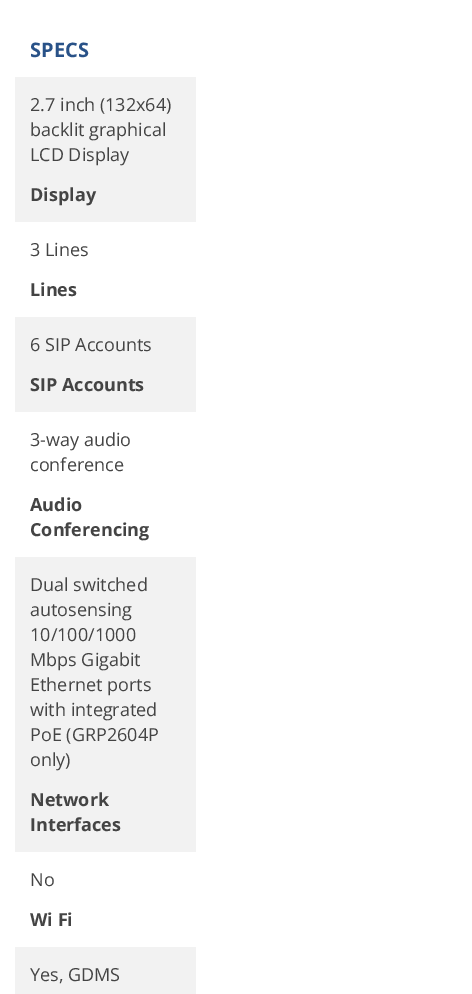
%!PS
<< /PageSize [472 994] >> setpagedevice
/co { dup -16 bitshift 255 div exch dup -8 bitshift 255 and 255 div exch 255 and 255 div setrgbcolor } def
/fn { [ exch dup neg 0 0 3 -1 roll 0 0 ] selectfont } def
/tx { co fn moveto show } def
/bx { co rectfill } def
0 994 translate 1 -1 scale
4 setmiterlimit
0 0 472 994 16#FFFFFF bx
15 77 181 145 16#F2F2F2 bx
15 317 181 95 16#F2F2F2 bx
15 557 181 295 16#F2F2F2 bx
15 947 181 47 16#F2F2F2 bx
(SPECS) 30 57 /OpenSans-Bold 20 16#295288 tx
(2.7 inch \(132x64\)) 30 111 /OpenSans-Regular 18 16#444444 tx
(backlit graphical) 30 136 /OpenSans-Regular 18 16#444444 tx
(LCD Display) 30 161 /OpenSans-Regular 18 16#444444 tx
(Display) 30 201 /OpenSans-Bold 18 16#444444 tx
(3 Lines) 30 256 /OpenSans-Regular 18 16#444444 tx
(Lines) 30 296 /OpenSans-Bold 18 16#444444 tx
(6 SIP Accounts) 30 351 /OpenSans-Regular 18 16#444444 tx
(SIP Accounts) 30 391 /OpenSans-Bold 18 16#444444 tx
(3-way audio) 30 446 /OpenSans-Regular 18 16#444444 tx
(conference) 30 471 /OpenSans-Regular 18 16#444444 tx
(Audio) 30 511 /OpenSans-Bold 18 16#444444 tx
(Conferencing) 30 536 /OpenSans-Bold 18 16#444444 tx
(Dual switched) 30 591 /OpenSans-Regular 18 16#444444 tx
(autosensing) 30 616 /OpenSans-Regular 18 16#444444 tx
(10/100/1000) 30 641 /OpenSans-Regular 18 16#444444 tx
(Mbps Gigabit) 30 666 /OpenSans-Regular 18 16#444444 tx
(Ethernet ports) 30 691 /OpenSans-Regular 18 16#444444 tx
(with integrated) 30 716 /OpenSans-Regular 18 16#444444 tx
(PoE \(GRP2604P) 30 741 /OpenSans-Regular 18 16#444444 tx
(only\)) 30 766 /OpenSans-Regular 18 16#444444 tx
(Network) 30 806 /OpenSans-Bold 18 16#444444 tx
(Interfaces) 30 831 /OpenSans-Bold 18 16#444444 tx
(No) 30 886 /OpenSans-Regular 18 16#444444 tx
(Wi Fi) 30 926 /OpenSans-Bold 18 16#444444 tx
(Yes, GDMS) 30 981 /OpenSans-Regular 18 16#444444 tx
showpage
